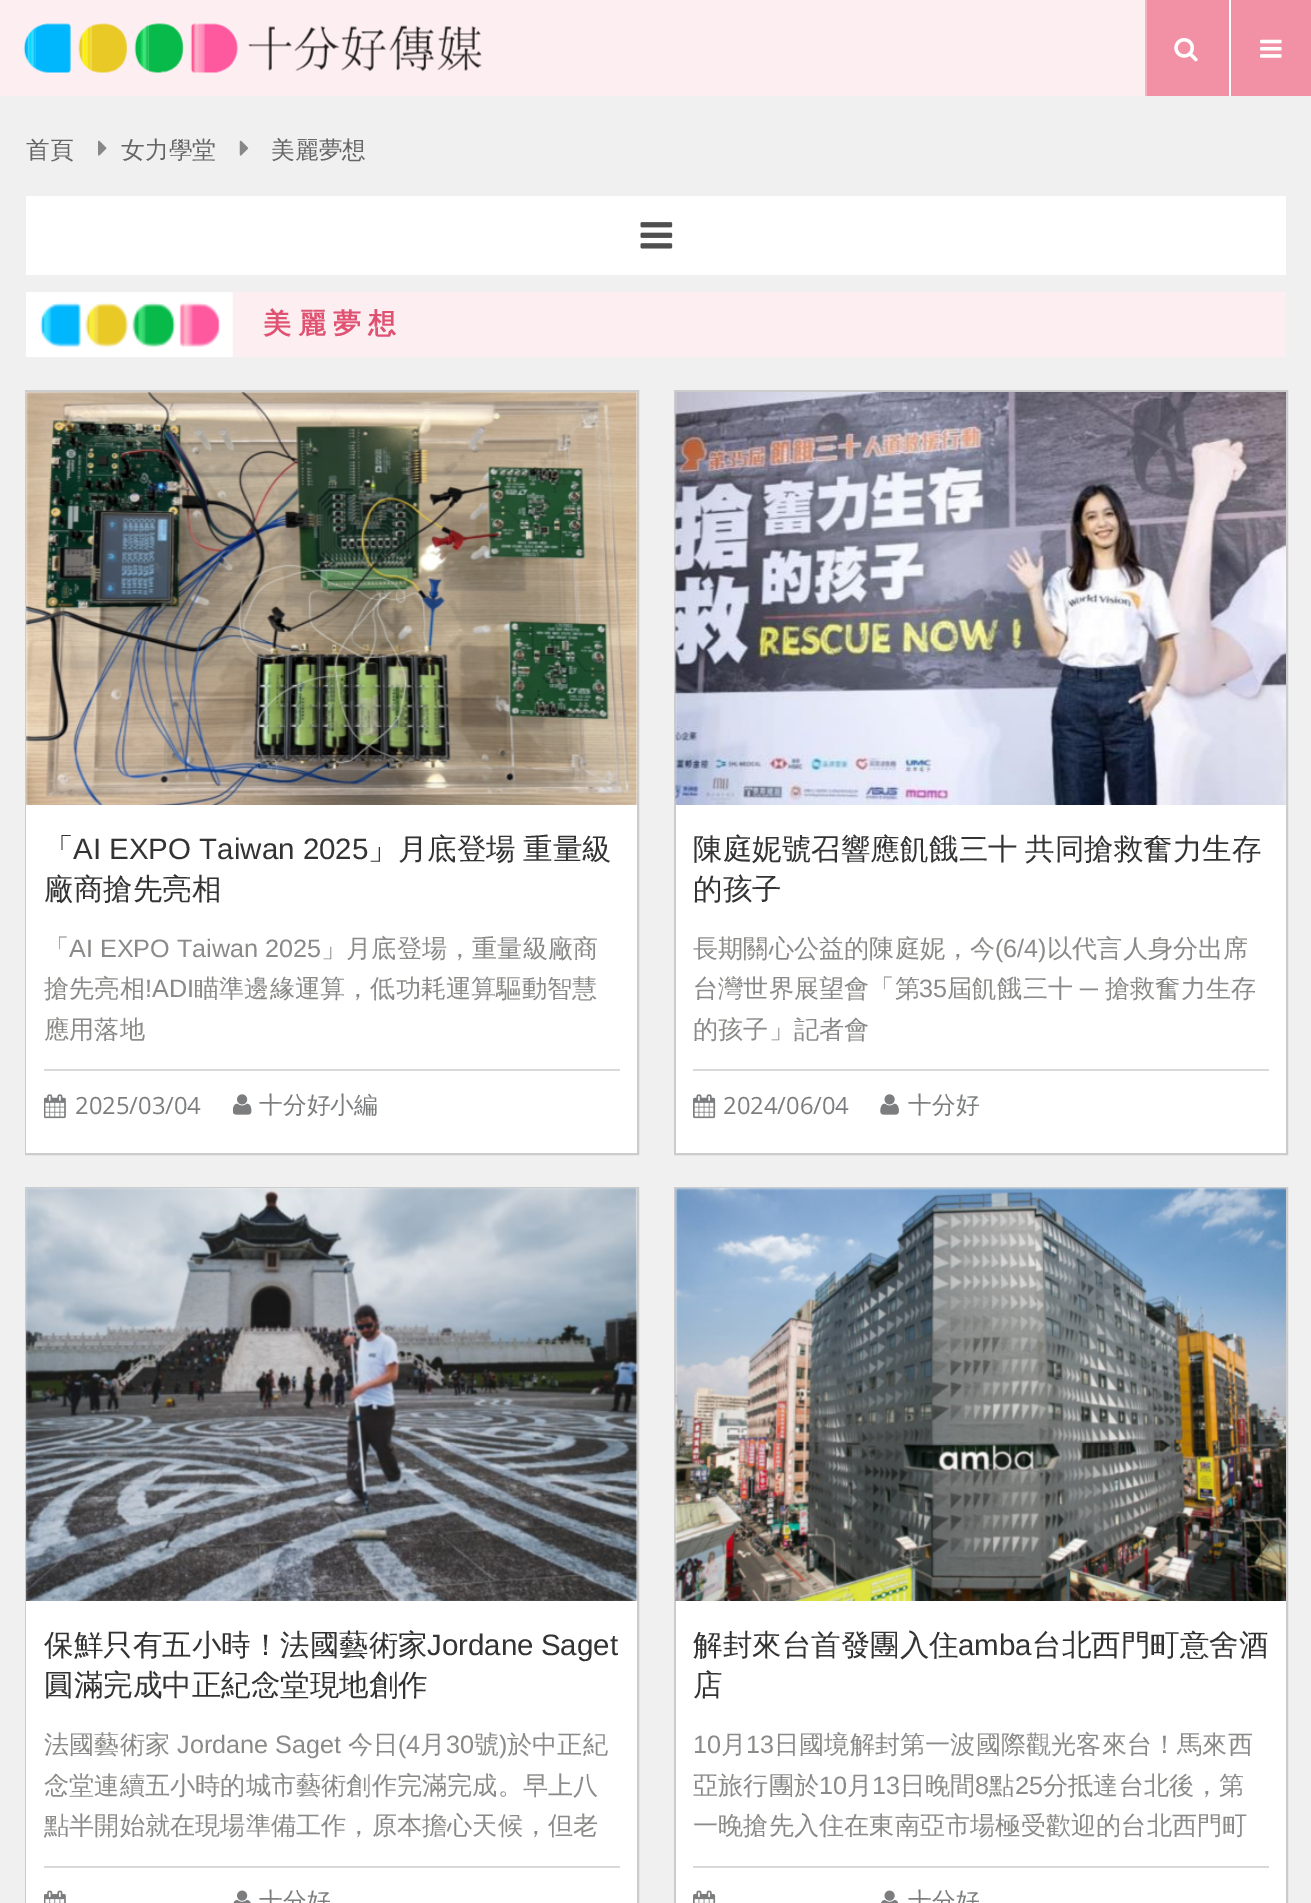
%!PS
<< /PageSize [1311 1903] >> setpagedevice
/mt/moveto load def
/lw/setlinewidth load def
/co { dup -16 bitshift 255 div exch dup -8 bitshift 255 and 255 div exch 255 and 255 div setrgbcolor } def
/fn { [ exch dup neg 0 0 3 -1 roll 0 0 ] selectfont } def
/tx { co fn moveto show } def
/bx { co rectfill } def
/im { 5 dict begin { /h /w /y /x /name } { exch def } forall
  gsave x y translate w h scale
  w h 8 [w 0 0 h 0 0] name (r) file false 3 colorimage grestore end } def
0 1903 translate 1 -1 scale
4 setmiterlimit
0 0 1311 1903 16#F0F0F0 bx
0 0 1145 96 16#FCEEF1 bx
(media/1.raw) 23 23 459 50 im
1147 0 82 96 16#F290A6 bx
1145 0 2 96 16#F6B1C1 bx
(media/2.raw) 1174 38 24 24 im
1231 0 80 96 16#F290A6 bx
1229 0 2 96 16#FFFFFF bx
(media/3.raw) 1260 39 22 19 im
(media/4.raw) 98 140 9 16 im
(media/5.raw) 239 140 10 16 im
26 196 1260 79 16#FFFFFF bx
(media/6.raw) 640 222 33 27 im
232 292 1054 65 16#FCEEF1 bx
(media/7.raw) 26 292 207 65 im
16#CCCCCC co
2 lw
26 391 612 763 rectstroke
26 392 611 761 16#FFFFFF bx
(media/8.raw) 26 392 612 413 im
44 1069 576 2 16#D9D9D9 bx
(media/9.raw) 44 1094 22 25 im
(media/10.raw) 233 1094 19 21 im
16#CCCCCC co
675 391 612 763 rectstroke
676 392 610 761 16#FFFFFF bx
(media/11.raw) 675 392 611 413 im
693 1069 576 2 16#D9D9D9 bx
(media/12.raw) 693 1094 23 25 im
(media/13.raw) 880 1094 19 21 im
16#CCCCCC co
26 1188 612 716 rectstroke
26 1188 611 715 16#FFFFFF bx
(media/14.raw) 26 1188 612 413 im
44 1866 576 2 16#D9D9D9 bx
(media/15.raw) 44 1890 22 13 im
(media/16.raw) 233 1890 18 13 im
16#CCCCCC co
675 1188 612 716 rectstroke
676 1188 610 715 16#FFFFFF bx
(media/17.raw) 675 1188 611 413 im
693 1866 576 2 16#D9D9D9 bx
(media/18.raw) 693 1890 23 13 im
(media/19.raw) 881 1890 18 13 im
(首頁) 26 158 /WenQuanYiZenHei-Medium 23.75 16#666666 tx
(女力學堂) 121 158 /WenQuanYiZenHei-Medium 23.75 16#666666 tx
(美麗夢想) 271 158 /WenQuanYiZenHei-Medium 23.75 16#666666 tx
/WenQuanYiZenHei-Bold 28 fn
16#DF5271 co
263 333 mt 7 0 (美麗夢想) ashow
(「) 44 859 /WenQuanYiZenHei-Medium 29.5 16#333333 tx
(AI EXPO Taiwan 2025) 73 859 /LiberationSans-Regular 29.5 16#333333 tx
(」月底登場) 368 859 /WenQuanYiZenHei-Medium 29.5 16#333333 tx
(重量級) 523 859 /WenQuanYiZenHei-Medium 29.5 16#333333 tx
(廠商搶先亮相) 44 899 /WenQuanYiZenHei-Medium 29.5 16#333333 tx
(「) 44 957 /WenQuanYiZenHei-Medium 25.2 16#8A8A89 tx
(AI EXPO Taiwan 2025) 69 957 /LiberationSans-Regular 25.2 16#8A8A89 tx
(」月底登場，重量級廠商) 321 957 /WenQuanYiZenHei-Medium 25.2 16#8A8A89 tx
(搶先亮相) 44 997 /WenQuanYiZenHei-Medium 25.2 16#8A8A89 tx
(!ADI) 145 997 /LiberationSans-Regular 25.2 16#8A8A89 tx
(瞄準邊緣運算，低功耗運算驅動智慧) 194 997 /WenQuanYiZenHei-Medium 25.2 16#8A8A89 tx
(應用落地) 44 1038 /WenQuanYiZenHei-Medium 25.2 16#8A8A89 tx
(2025/03/04) 75 1114 /OpenSans-Regular 23.75 16#7C7D7E tx
(十分好小編) 259 1113 /WenQuanYiZenHei-Medium 23.75 16#7C7D7E tx
/WenQuanYiZenHei-Medium 29.5 fn
16#333333 co
693 859 mt -1 0 32 (陳庭妮號召響應飢餓三十 共同搶救奮力生存) widthshow
(的孩子) 693 899 /WenQuanYiZenHei-Medium 29.5 16#333333 tx
(長期關心公益的陳庭妮，今) 693 957 /WenQuanYiZenHei-Medium 25.2 16#8A8A89 tx
(\(6/4\)) 995 957 /LiberationSans-Regular 25.2 16#8A8A89 tx
(以代言人身分出席) 1047 957 /WenQuanYiZenHei-Medium 25.2 16#8A8A89 tx
(台灣世界展望會「第) 693 997 /WenQuanYiZenHei-Medium 25.2 16#8A8A89 tx
(35) 919 997 /LiberationSans-Regular 25.2 16#8A8A89 tx
(屆飢餓三十) 947 997 /WenQuanYiZenHei-Medium 25.2 16#8A8A89 tx
(─) 1080 997 /LiberationSans-Regular 25.2 16#8A8A89 tx
(搶救奮力生存) 1105 997 /WenQuanYiZenHei-Medium 25.2 16#8A8A89 tx
(的孩子」記者會) 693 1038 /WenQuanYiZenHei-Medium 25.2 16#8A8A89 tx
(2024/06/04) 723 1114 /OpenSans-Regular 23.75 16#7C7D7E tx
(十分好) 908 1113 /WenQuanYiZenHei-Medium 23.75 16#7C7D7E tx
(保鮮只有五小時！法國藝術家) 44 1655 /WenQuanYiZenHei-Medium 29.5 16#333333 tx
/LiberationSans-Regular 29.5 fn
427 1655 mt -1 0 32 (Jordane Saget) widthshow
(圓滿完成中正紀念堂現地創作) 44 1695 /WenQuanYiZenHei-Medium 29.5 16#333333 tx
(法國藝術家) 44 1753 /WenQuanYiZenHei-Medium 25.2 16#8A8A89 tx
(Jordane Saget) 177 1753 /LiberationSans-Regular 25.2 16#8A8A89 tx
(今日) 348 1753 /WenQuanYiZenHei-Medium 25.2 16#8A8A89 tx
(\(4) 398 1753 /LiberationSans-Regular 25.2 16#8A8A89 tx
(月) 420 1753 /WenQuanYiZenHei-Medium 25.2 16#8A8A89 tx
(30) 446 1753 /LiberationSans-Regular 25.2 16#8A8A89 tx
(號) 474 1753 /WenQuanYiZenHei-Medium 25.2 16#8A8A89 tx
(\)) 499 1753 /LiberationSans-Regular 25.2 16#8A8A89 tx
(於中正紀) 507 1753 /WenQuanYiZenHei-Medium 25.2 16#8A8A89 tx
(念堂連續五小時的城市藝術創作完滿完成。早上八) 44 1794 /WenQuanYiZenHei-Medium 25.2 16#8A8A89 tx
(點半開始就在現場準備工作，原本擔心天候，但老) 44 1834 /WenQuanYiZenHei-Medium 25.2 16#8A8A89 tx
(十分好) 259 1909 /WenQuanYiZenHei-Medium 23.75 16#7C7D7E tx
(解封來台首發團入住) 693 1655 /WenQuanYiZenHei-Medium 29.5 16#333333 tx
(amba) 958 1655 /LiberationSans-Regular 29.5 16#333333 tx
(台北西門町意舍酒) 1032 1655 /WenQuanYiZenHei-Medium 29.5 16#333333 tx
(店) 693 1695 /WenQuanYiZenHei-Medium 29.5 16#333333 tx
(10) 693 1753 /LiberationSans-Regular 25.2 16#8A8A89 tx
(月) 721 1753 /WenQuanYiZenHei-Medium 25.2 16#8A8A89 tx
(13) 746 1753 /LiberationSans-Regular 25.2 16#8A8A89 tx
(日國境解封第一波國際觀光客來台！馬來西) 774 1753 /WenQuanYiZenHei-Medium 25.2 16#8A8A89 tx
(亞旅行團於) 693 1794 /WenQuanYiZenHei-Medium 25.2 16#8A8A89 tx
(10) 819 1794 /LiberationSans-Regular 25.2 16#8A8A89 tx
(月) 847 1794 /WenQuanYiZenHei-Medium 25.2 16#8A8A89 tx
(13) 872 1794 /LiberationSans-Regular 25.2 16#8A8A89 tx
(日晚間) 900 1794 /WenQuanYiZenHei-Medium 25.2 16#8A8A89 tx
(8) 975 1794 /LiberationSans-Regular 25.2 16#8A8A89 tx
(點) 989 1794 /WenQuanYiZenHei-Medium 25.2 16#8A8A89 tx
(25) 1015 1794 /LiberationSans-Regular 25.2 16#8A8A89 tx
(分抵達台北後，第) 1043 1794 /WenQuanYiZenHei-Medium 25.2 16#8A8A89 tx
(一晚搶先入住在東南亞市場極受歡迎的台北西門町) 693 1834 /WenQuanYiZenHei-Medium 25.2 16#8A8A89 tx
(十分好) 908 1909 /WenQuanYiZenHei-Medium 23.75 16#7C7D7E tx
showpage
